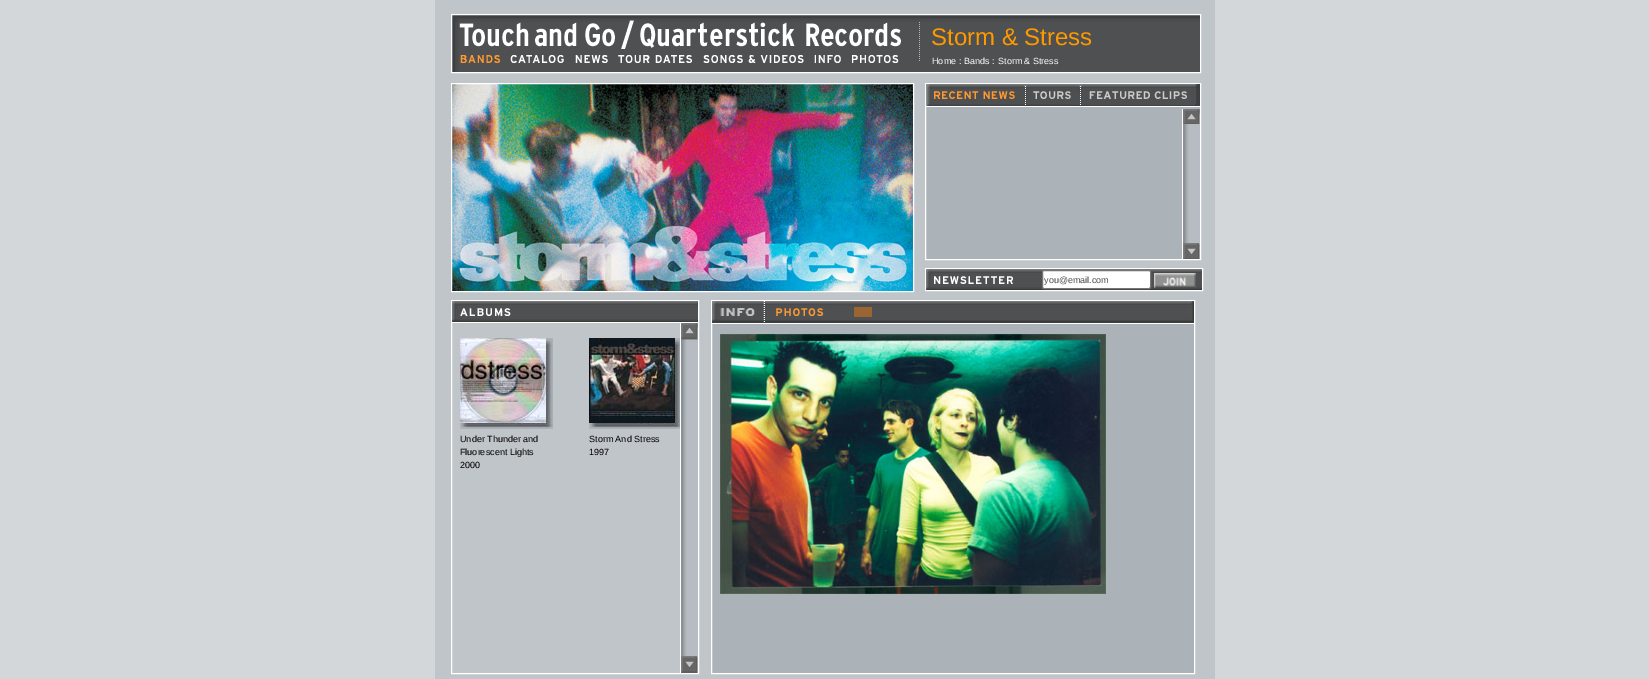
%!PS
<< /PageSize [1649 679] >> setpagedevice
/fl/fill load def
/st/stroke load def
/gs/gsave load def
/gr/grestore load def
/co { dup -16 bitshift 255 div exch dup -8 bitshift 255 and 255 div exch 255 and 255 div setrgbcolor } def
/fn { [ exch dup neg 0 0 3 -1 roll 0 0 ] selectfont } def
/tx { co fn moveto show } def
/bx { co rectfill } def
/rr { 5 dict begin { /r /h /w /y /x } { exch def } forall
  x r add y moveto x w add y 2 copy h add r arct x w add y h add x 1 index r arct
  x y h add x y r arct x y 2 copy exch w add exch r arct closepath end } def
/im { 5 dict begin { /h /w /y /x /name } { exch def } forall
  gsave x y translate w h scale
  w h 8 [w 0 0 h 0 0] name (r) file false 3 colorimage grestore end } def
0 679 translate 1 -1 scale
4 setmiterlimit
0 0 1649 679 16#D3D7D9 bx
435 0 780 679 16#C0C5C9 bx
452 15 748 57 16#3D3F40 bx
(media/1.raw) 455 18 745 54 im
16#FFFFFF co
451.5 14.5 749 58 rectstroke
(media/2.raw) 459 20 442 29 im
(media/3.raw) 919 22 1 39 im
(media/4.raw) 460 55 40 8 im
(media/5.raw) 510 55 54 8 im
(media/6.raw) 575 55 33 8 im
(media/7.raw) 618 55 74 8 im
(media/8.raw) 703 55 101 8 im
(media/9.raw) 814 55 27 8 im
(media/10.raw) 852 55 47 8 im
(media/11.raw) 452 84 461 207 im
451.5 83.5 462 208 rectstroke
926 107 274 152 16#ACB3B8 bx
16#FFFFFF co
925.5 83.5 275 176 rectstroke
1026 84 174 22 16#3D3F40 bx
926 106 274 1 16#FFFFFF bx
(media/12.raw) 926 84 100 22 im
(media/13.raw) 1026 84 55 21 im
(media/14.raw) 1081 84 117 22 im
1182 109 1 150 16#FFFFFF bx
(media/15.raw) 1183 109 17 15 im
(media/16.raw) 1183 124 17 119 im
(media/17.raw) 1183 243 17 16 im
925.5 268.5 277 22 rectstroke
(media/18.raw) 926 269 276 21 im
1042.5 270.5 108 18 1.5 rr gs fl gr
16#767676 co
st
(media/19.raw) 1154 273 42 15 im
16#FFFFFF co
451.5 300.5 247 373 rectstroke
452 322 246 1 16#FFFFFF bx
(media/20.raw) 452 301 246 21 im
680 323 1 350 16#FFFFFF bx
(media/21.raw) 681 323 17 17 im
(media/22.raw) 460 338 93 91 im
(media/23.raw) 460 338 86 85 im
(media/24.raw) 589 338 91 91 im
(media/25.raw) 589 338 86 85 im
(media/26.raw) 681 340 17 316 im
(media/27.raw) 681 656 17 17 im
712 324 482 349 16#ACB3B8 bx
16#FFFFFF co
711.5 300.5 483 373 rectstroke
712 322 482 1 16#3D3F40 bx
(media/28.raw) 712 301 482 21 im
712 323 482 1 16#FFFFFF bx
(media/29.raw) 713 301 52 21 im
(media/30.raw) 776 308 47 8 im
854 307 18 10 16#996633 bx
(media/31.raw) 720 334 386 260 im
(Storm & Stress) 931 45 /LiberationSans-Regular 24 16#FF9900 tx
(Home :) 932 64 /LiberationSans-Regular 9 16#FFFFFF tx
(Bands :) 964 64 /LiberationSans-Regular 9 16#FFFFFF tx
(Storm & Stress) 998 64 /LiberationSans-Regular 9 16#FFFFFF tx
(you@email.com) 1044 283 /LiberationSans-Regular 9 16#4E5051 tx
(Under Thunder and) 460 442 /LiberationSans-Regular 9 16#000000 tx
(Fluorescent Lights) 460 455 /LiberationSans-Regular 9 16#000000 tx
(2000) 460 468 /LiberationSans-Regular 9 16#000000 tx
(Storm And Stress) 589 442 /LiberationSans-Regular 9 16#000000 tx
(1997) 589 455 /LiberationSans-Regular 9 16#000000 tx
showpage
